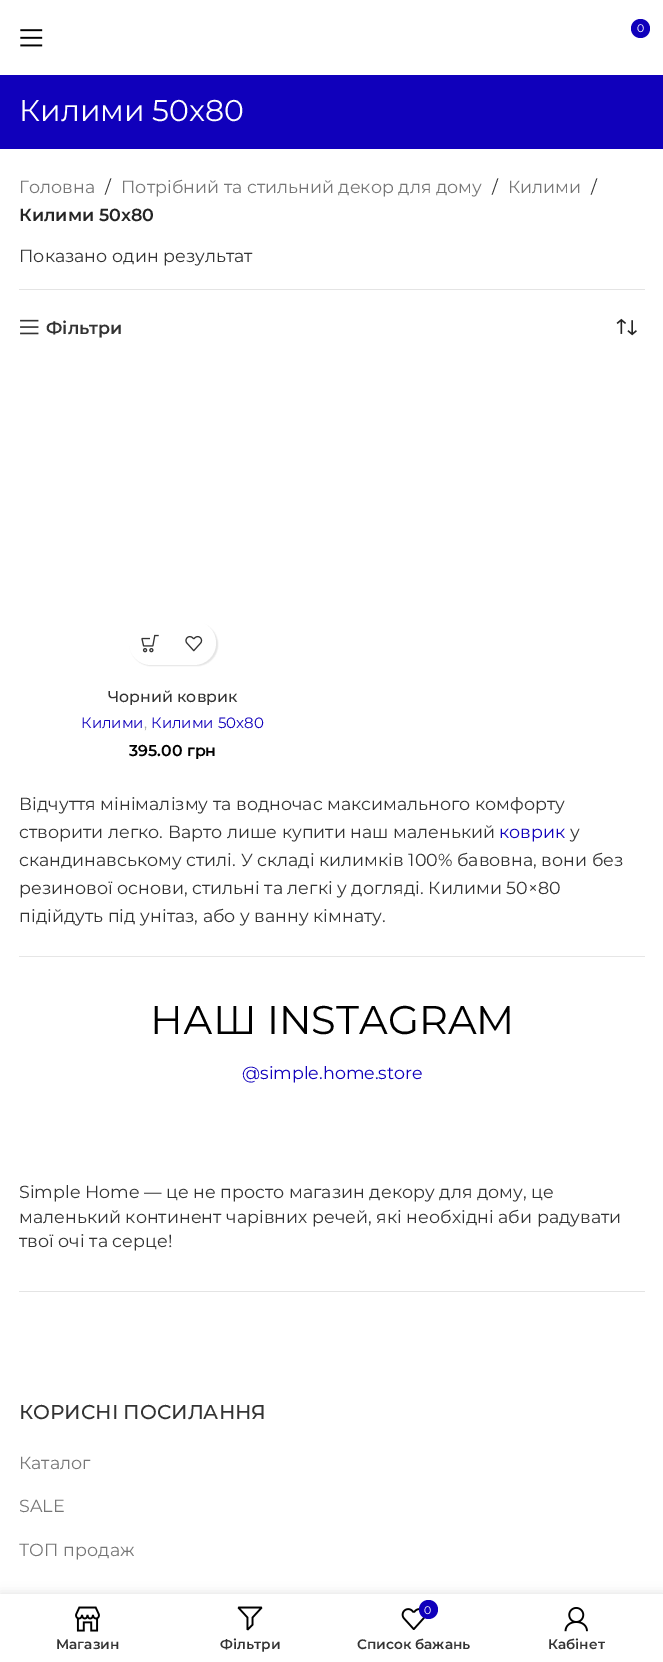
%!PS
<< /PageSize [663 1662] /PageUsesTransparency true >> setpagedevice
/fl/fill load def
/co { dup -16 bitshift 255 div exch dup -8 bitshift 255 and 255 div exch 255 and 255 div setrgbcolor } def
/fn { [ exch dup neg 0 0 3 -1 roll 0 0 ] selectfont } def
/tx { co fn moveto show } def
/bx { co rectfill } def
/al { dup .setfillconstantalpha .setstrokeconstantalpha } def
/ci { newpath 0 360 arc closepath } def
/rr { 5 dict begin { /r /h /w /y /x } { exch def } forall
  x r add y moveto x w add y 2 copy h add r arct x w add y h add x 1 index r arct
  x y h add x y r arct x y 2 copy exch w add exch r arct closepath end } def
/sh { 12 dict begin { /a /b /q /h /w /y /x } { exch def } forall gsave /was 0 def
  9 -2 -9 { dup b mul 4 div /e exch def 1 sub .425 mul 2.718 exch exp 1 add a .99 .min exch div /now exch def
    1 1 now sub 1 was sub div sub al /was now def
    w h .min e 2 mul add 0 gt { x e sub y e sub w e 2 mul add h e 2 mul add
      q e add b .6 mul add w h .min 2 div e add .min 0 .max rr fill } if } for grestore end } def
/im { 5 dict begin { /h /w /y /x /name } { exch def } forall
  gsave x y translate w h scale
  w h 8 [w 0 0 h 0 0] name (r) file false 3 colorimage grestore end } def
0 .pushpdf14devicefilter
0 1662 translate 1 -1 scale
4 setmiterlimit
0 0 663 1662 16#FFFFFF bx
(media/1.raw) 20 29 23 18 im
16#1000BB co
640.5 28.5 9.5 ci fl
0 75 663 74 16#1000BB bx
19 289 626 1 16#E4E4E4 bx
(media/2.raw) 20 319 19 16 im
(media/3.raw) 616 318 21 18 im
16#000000 co
130 623 88 43 21.5 .5 .1 sh
16#FFFFFF co
129 621 87 44 22 rr fl
(media/4.raw) 141 634 18 19 im
(media/5.raw) 185 635 18 17 im
19 956 626 1 16#E6E6E6 bx
19 1291 626 1 16#E4E4E4 bx
16#000000 co
0 1594 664 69 0 5.5 .12 sh
0 1594 663 68 16#FFFFFF bx
(media/6.raw) 75 1606 25 26 im
(media/7.raw) 237 1606 26 25 im
(media/8.raw) 401 1608 24 22 im
16#1000BB co
428.5 1609.5 9.5 ci fl
(media/9.raw) 564 1607 24 25 im
(0) 637 32 /Montserrat-Regular 11 16#FFFFFF tx
(Килими 50x80) 19 121 /Montserrat-Regular 30 16#FFFFFF tx
(Головна) 19 193 /Montserrat-Regular 17.5 16#767676 tx
(/) 105 193 /Montserrat-Regular 17.5 16#333333 tx
(Потрібний та стильний декор для дому) 121 193 /Montserrat-Regular 17.5 16#767676 tx
(/) 492 193 /Montserrat-Regular 17.5 16#333333 tx
(Килими) 508 193 /Montserrat-Regular 17.5 16#767676 tx
(/) 591 193 /Montserrat-Regular 17.5 16#333333 tx
(Килими 50x80) 19 221 /Montserrat-SemiBold 17.5 16#242424 tx
(Показано один результат) 19 262 /Montserrat-Regular 17.5 16#333333 tx
(Фільтри) 46 334 /Montserrat-SemiBold 17.5 16#333333 tx
(Чорний коврик) 108 702 /Montserrat-Medium 15.75 16#333333 tx
(Килими) 81 728 /Montserrat-Regular 15 16#1000BB tx
(,) 144 728 /Montserrat-Regular 15 16#A5A5A5 tx
(Килими 50x80) 151 728 /Montserrat-Regular 15 16#1000BB tx
(395.00 грн) 129 756 /Montserrat-SemiBold 15.75 16#000000 tx
(Відчуття мінімалізму та водночас максимального комфорту) 19 810 /Montserrat-Regular 17.5 16#333333 tx
(створити легко. Варто лише купити наш маленький) 19 838 /Montserrat-Regular 17.5 16#333333 tx
(коврик) 499 838 /Montserrat-Regular 17.5 16#1000BB tx
(у) 570 838 /Montserrat-Regular 17.5 16#333333 tx
(скандинавському стилі. У складі килимків 100% бавовна, вони без) 19 866 /Montserrat-Regular 17.5 16#333333 tx
(резинової основи, стильні та легкі у догляді. Килими 50×80) 19 894 /Montserrat-Regular 17.5 16#333333 tx
(підійдуть під унітаз, або у ванну кімнату.) 19 922 /Montserrat-Regular 17.5 16#333333 tx
(НАШ INSTAGRAM) 150 1034 /Montserrat-Regular 40 16#000000 tx
(@simple.home.store) 242 1079 /Montserrat-Regular 17.5 16#1000BB tx
(Simple Home — це не просто магазин декору для дому, це) 19 1198 /Montserrat-Regular 17.5 16#333333 tx
(маленький континент чарівних речей, які необхідні аби радувати) 19 1223 /Montserrat-Regular 17.5 16#333333 tx
(твої очі та серце!) 19 1247 /Montserrat-Regular 17.5 16#333333 tx
(КОРИСНІ ПОСИЛАННЯ) 19 1419 /Montserrat-Medium 20 16#333333 tx
(Каталог) 19 1469 /Montserrat-Regular 17.5 16#767676 tx
(SALE) 19 1512 /Montserrat-Regular 17.5 16#767676 tx
(ТОП продаж) 19 1556 /Montserrat-Regular 17.5 16#767676 tx
(Магазин) 56 1649 /Montserrat-SemiBold 13.75 16#333333 tx
(Фільтри) 220 1649 /Montserrat-SemiBold 13.75 16#333333 tx
(0) 424 1614 /Montserrat-Regular 11 16#FFFFFF tx
(Список бажань) 357 1649 /Montserrat-SemiBold 13.75 16#333333 tx
(Кабінет) 548 1649 /Montserrat-SemiBold 13.75 16#333333 tx
.poppdf14devicefilter showpage
